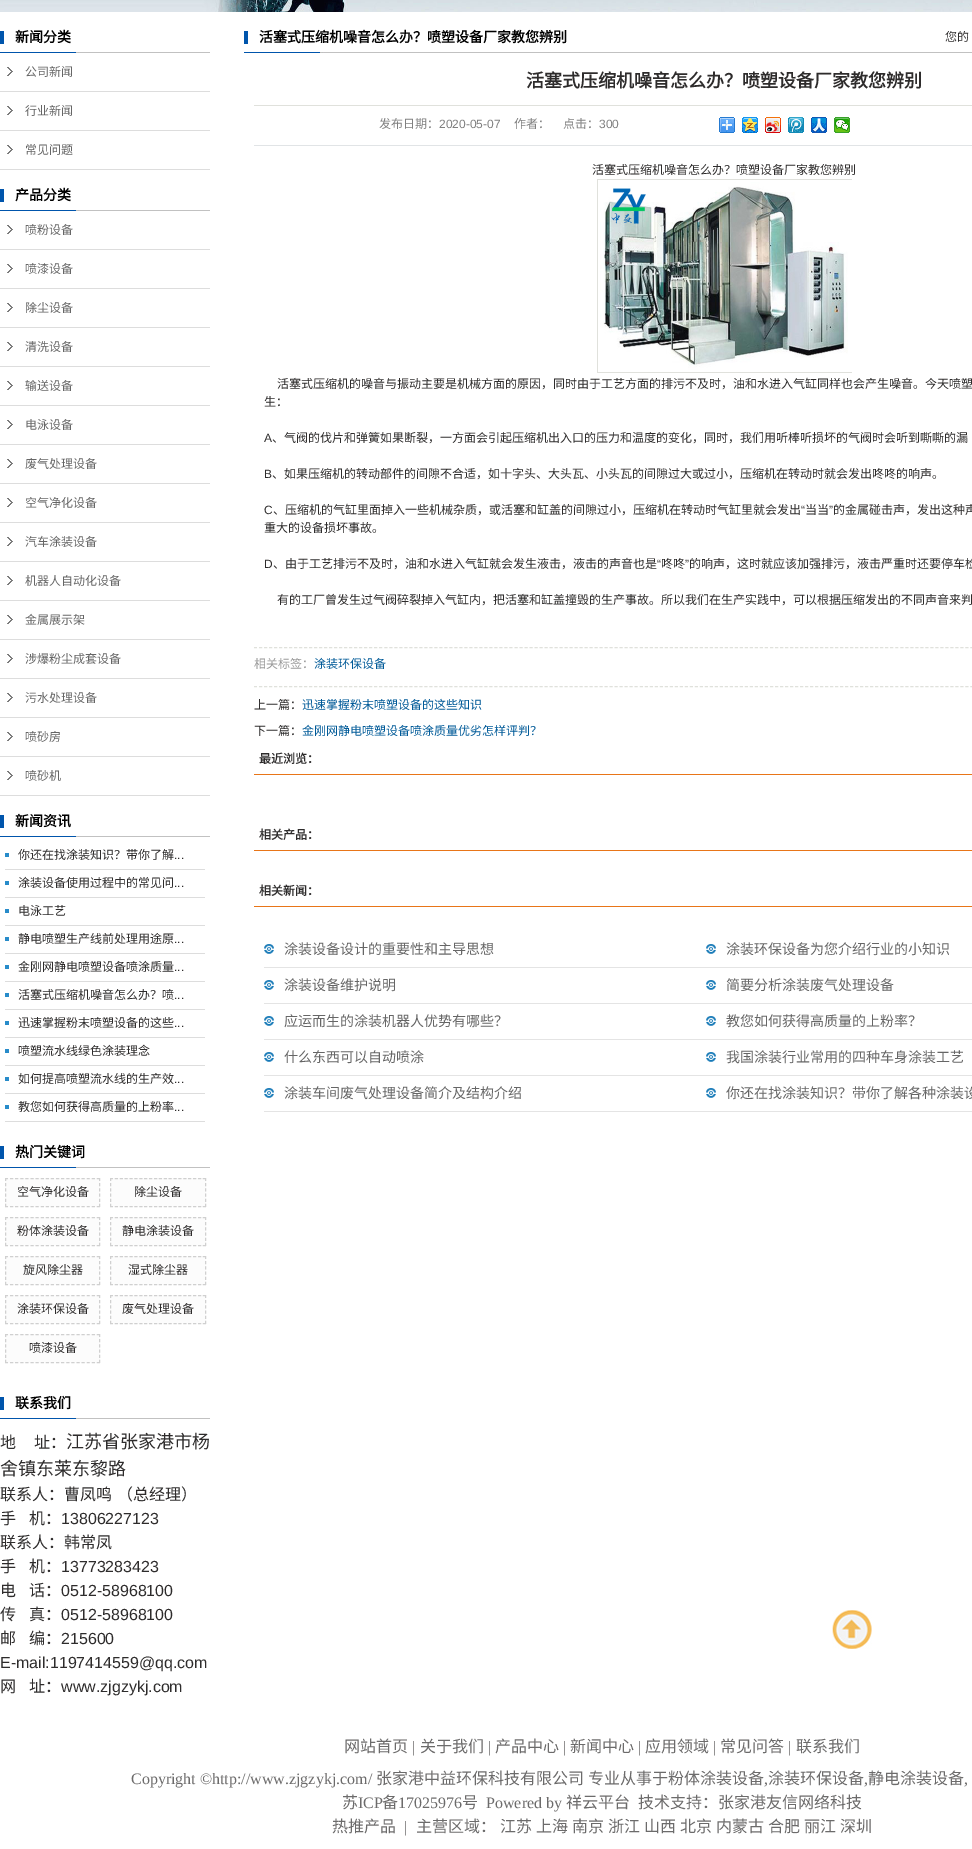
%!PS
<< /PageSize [972 1849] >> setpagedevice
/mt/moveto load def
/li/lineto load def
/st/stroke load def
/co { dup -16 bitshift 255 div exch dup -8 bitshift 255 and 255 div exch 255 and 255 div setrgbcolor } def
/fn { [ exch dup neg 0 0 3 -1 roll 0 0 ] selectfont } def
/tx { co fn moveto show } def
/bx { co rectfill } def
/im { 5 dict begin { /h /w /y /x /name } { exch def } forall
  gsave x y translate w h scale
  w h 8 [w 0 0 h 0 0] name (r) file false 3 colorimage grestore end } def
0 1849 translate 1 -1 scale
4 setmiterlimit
0 0 972 1849 16#FFFFFF bx
(media/1.raw) 0 0 972 12 im
(media/2.raw) 0 31 210 22 im
(media/3.raw) 7 67 6 9 im
0 91 210 1 16#DDDDDD bx
(media/3.raw) 7 106 6 9 im
0 130 210 1 16#DDDDDD bx
(media/3.raw) 7 145 6 9 im
0 169 210 1 16#DDDDDD bx
(media/2.raw) 0 189 210 22 im
(media/3.raw) 7 225 6 9 im
0 249 210 1 16#DDDDDD bx
(media/3.raw) 7 264 6 9 im
0 288 210 1 16#DDDDDD bx
(media/3.raw) 7 303 6 9 im
0 327 210 1 16#DDDDDD bx
(media/3.raw) 7 342 6 9 im
0 366 210 1 16#DDDDDD bx
(media/3.raw) 7 381 6 9 im
0 405 210 1 16#DDDDDD bx
(media/3.raw) 7 420 6 9 im
0 444 210 1 16#DDDDDD bx
(media/3.raw) 7 459 6 9 im
0 483 210 1 16#DDDDDD bx
(media/3.raw) 7 498 6 9 im
0 522 210 1 16#DDDDDD bx
(media/3.raw) 7 537 6 9 im
0 561 210 1 16#DDDDDD bx
(media/3.raw) 7 576 6 9 im
0 600 210 1 16#DDDDDD bx
(media/3.raw) 7 615 6 9 im
0 639 210 1 16#DDDDDD bx
(media/3.raw) 7 654 6 9 im
0 678 210 1 16#DDDDDD bx
(media/3.raw) 7 693 6 9 im
0 717 210 1 16#DDDDDD bx
(media/3.raw) 7 732 6 9 im
0 756 210 1 16#DDDDDD bx
(media/3.raw) 7 771 6 9 im
0 795 210 1 16#DDDDDD bx
(media/2.raw) 0 815 210 22 im
(media/4.raw) 5 853 4 4 im
5 869 200 1 16#DDDDDD bx
(media/4.raw) 5 881 4 4 im
5 897 200 1 16#DDDDDD bx
(media/4.raw) 5 909 4 4 im
5 925 200 1 16#DDDDDD bx
(media/4.raw) 5 937 4 4 im
5 953 200 1 16#DDDDDD bx
(media/4.raw) 5 965 4 4 im
5 981 200 1 16#DDDDDD bx
(media/4.raw) 5 993 4 4 im
5 1009 200 1 16#DDDDDD bx
(media/4.raw) 5 1021 4 4 im
5 1037 200 1 16#DDDDDD bx
(media/4.raw) 5 1049 4 4 im
5 1065 200 1 16#DDDDDD bx
(media/4.raw) 5 1077 4 4 im
5 1093 200 1 16#DDDDDD bx
(media/4.raw) 5 1105 4 4 im
5 1121 200 1 16#DDDDDD bx
(media/2.raw) 0 1146 210 22 im
5 1178 95 29 16#FCFCFC bx
16#D0D0D0 co
[3 2.11] 0 setdash
5 1178.5 mt 100 1178.5 li st
[3 2.2] 0 setdash
99.5 1178 mt 99.5 1207 li st
[3 2.11] 0 setdash
5 1206.5 mt 100 1206.5 li st
[3 2.2] 0 setdash
5.5 1178 mt 5.5 1207 li st
110 1178 96 29 16#FCFCFC bx
16#D0D0D0 co
[3 1.89] 0 setdash
110 1178.5 mt 206 1178.5 li st
[3 2.2] 0 setdash
205.5 1178 mt 205.5 1207 li st
[3 1.89] 0 setdash
110 1206.5 mt 206 1206.5 li st
[3 2.2] 0 setdash
110.5 1178 mt 110.5 1207 li st
5 1217 95 29 16#FCFCFC bx
16#D0D0D0 co
[3 2.11] 0 setdash
5 1217.5 mt 100 1217.5 li st
[3 2.2] 0 setdash
99.5 1217 mt 99.5 1246 li st
[3 2.11] 0 setdash
5 1245.5 mt 100 1245.5 li st
[3 2.2] 0 setdash
5.5 1217 mt 5.5 1246 li st
110 1217 96 29 16#FCFCFC bx
16#D0D0D0 co
[3 1.89] 0 setdash
110 1217.5 mt 206 1217.5 li st
[3 2.2] 0 setdash
205.5 1217 mt 205.5 1246 li st
[3 1.89] 0 setdash
110 1245.5 mt 206 1245.5 li st
[3 2.2] 0 setdash
110.5 1217 mt 110.5 1246 li st
5 1256 95 29 16#FCFCFC bx
16#D0D0D0 co
[3 2.11] 0 setdash
5 1256.5 mt 100 1256.5 li st
[3 2.2] 0 setdash
99.5 1256 mt 99.5 1285 li st
[3 2.11] 0 setdash
5 1284.5 mt 100 1284.5 li st
[3 2.2] 0 setdash
5.5 1256 mt 5.5 1285 li st
110 1256 96 29 16#FCFCFC bx
16#D0D0D0 co
[3 1.89] 0 setdash
110 1256.5 mt 206 1256.5 li st
[3 2.2] 0 setdash
205.5 1256 mt 205.5 1285 li st
[3 1.89] 0 setdash
110 1284.5 mt 206 1284.5 li st
[3 2.2] 0 setdash
110.5 1256 mt 110.5 1285 li st
5 1295 95 29 16#FCFCFC bx
16#D0D0D0 co
[3 2.11] 0 setdash
5 1295.5 mt 100 1295.5 li st
[3 2.2] 0 setdash
99.5 1295 mt 99.5 1324 li st
[3 2.11] 0 setdash
5 1323.5 mt 100 1323.5 li st
[3 2.2] 0 setdash
5.5 1295 mt 5.5 1324 li st
110 1295 96 29 16#FCFCFC bx
16#D0D0D0 co
[3 1.89] 0 setdash
110 1295.5 mt 206 1295.5 li st
[3 2.2] 0 setdash
205.5 1295 mt 205.5 1324 li st
[3 1.89] 0 setdash
110 1323.5 mt 206 1323.5 li st
[3 2.2] 0 setdash
110.5 1295 mt 110.5 1324 li st
5 1334 95 29 16#FCFCFC bx
16#D0D0D0 co
[3 2.11] 0 setdash
5 1334.5 mt 100 1334.5 li st
[3 2.2] 0 setdash
99.5 1334 mt 99.5 1363 li st
[3 2.11] 0 setdash
5 1362.5 mt 100 1362.5 li st
[3 2.2] 0 setdash
5.5 1334 mt 5.5 1363 li st
(media/2.raw) 0 1397 210 22 im
(media/5.raw) 244 31 728 22 im
254 105 718 1 16#E0E1DC bx
254 145 718 1 16#E1E4E6 bx
(media/6.raw) 719 117 16 16 im
(media/7.raw) 742 117 16 16 im
(media/8.raw) 765 117 16 16 im
(media/9.raw) 788 117 16 16 im
(media/10.raw) 811 117 16 16 im
(media/11.raw) 834 117 16 16 im
(media/12.raw) 597 179 255 194 im
16#E0E1DC co
[3 2.01] 0 setdash
254 647.5 mt 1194 647.5 li st
254 686.5 mt 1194 686.5 li st
254 774 718 1 16#E87518 bx
254 850 718 1 16#E87518 bx
254 906 718 1 16#E87518 bx
264 967 708 1 16#E4E4E4 bx
(media/13.raw) 264 944 10 10 im
(media/13.raw) 706 944 10 10 im
264 1003 708 1 16#E4E4E4 bx
(media/13.raw) 264 980 10 10 im
(media/13.raw) 706 980 10 10 im
264 1039 708 1 16#E4E4E4 bx
(media/13.raw) 264 1016 10 10 im
(media/13.raw) 706 1016 10 10 im
264 1075 708 1 16#E4E4E4 bx
(media/13.raw) 264 1052 10 10 im
(media/13.raw) 706 1052 10 10 im
264 1111 708 1 16#E4E4E4 bx
(media/13.raw) 264 1088 10 10 im
(media/13.raw) 706 1088 10 10 im
(media/14.raw) 832 1610 40 39 im
(新闻分类) 15 42 /NotoSansCJKSC-Bold 14 16#000000 tx
(公司新闻) 25 76 /NotoSansCJKSC-Regular 12 16#666666 tx
(行业新闻) 25 115 /NotoSansCJKSC-Regular 12 16#666666 tx
(常见问题) 25 154 /NotoSansCJKSC-Regular 12 16#666666 tx
(产品分类) 15 200 /NotoSansCJKSC-Bold 14 16#000000 tx
(喷粉设备) 25 234 /NotoSansCJKSC-Regular 12 16#666666 tx
(喷漆设备) 25 273 /NotoSansCJKSC-Regular 12 16#666666 tx
(除尘设备) 25 312 /NotoSansCJKSC-Regular 12 16#666666 tx
(清洗设备) 25 351 /NotoSansCJKSC-Regular 12 16#666666 tx
(输送设备) 25 390 /NotoSansCJKSC-Regular 12 16#666666 tx
(电泳设备) 25 429 /NotoSansCJKSC-Regular 12 16#666666 tx
(废气处理设备) 25 468 /NotoSansCJKSC-Regular 12 16#666666 tx
(空气净化设备) 25 507 /NotoSansCJKSC-Regular 12 16#666666 tx
(汽车涂装设备) 25 546 /NotoSansCJKSC-Regular 12 16#666666 tx
(机器人自动化设备) 25 585 /NotoSansCJKSC-Regular 12 16#666666 tx
(金属展示架) 25 624 /NotoSansCJKSC-Regular 12 16#666666 tx
(涉爆粉尘成套设备) 25 663 /NotoSansCJKSC-Regular 12 16#666666 tx
(污水处理设备) 25 702 /NotoSansCJKSC-Regular 12 16#666666 tx
(喷砂房) 25 741 /NotoSansCJKSC-Regular 12 16#666666 tx
(喷砂机) 25 780 /NotoSansCJKSC-Regular 12 16#666666 tx
(新闻资讯) 15 826 /NotoSansCJKSC-Bold 14 16#000000 tx
(你还在找涂装知识？带你了解) 18 859 /NotoSansCJKSC-Regular 12 16#2E2C2C tx
(...) 174 859 /LiberationSans-Regular 12 16#2E2C2C tx
(涂装设备使用过程中的常见问) 18 887 /NotoSansCJKSC-Regular 12 16#2E2C2C tx
(...) 174 887 /LiberationSans-Regular 12 16#2E2C2C tx
(电泳工艺) 18 915 /NotoSansCJKSC-Regular 12 16#2E2C2C tx
(静电喷塑生产线前处理用途原) 18 943 /NotoSansCJKSC-Regular 12 16#2E2C2C tx
(...) 174 943 /LiberationSans-Regular 12 16#2E2C2C tx
(金刚网静电喷塑设备喷涂质量) 18 971 /NotoSansCJKSC-Regular 12 16#2E2C2C tx
(...) 174 971 /LiberationSans-Regular 12 16#2E2C2C tx
(活塞式压缩机噪音怎么办？喷) 18 999 /NotoSansCJKSC-Regular 12 16#2E2C2C tx
(...) 174 999 /LiberationSans-Regular 12 16#2E2C2C tx
(迅速掌握粉末喷塑设备的这些) 18 1027 /NotoSansCJKSC-Regular 12 16#2E2C2C tx
(...) 174 1027 /LiberationSans-Regular 12 16#2E2C2C tx
(喷塑流水线绿色涂装理念) 18 1055 /NotoSansCJKSC-Regular 12 16#2E2C2C tx
(如何提高喷塑流水线的生产效) 18 1083 /NotoSansCJKSC-Regular 12 16#2E2C2C tx
(...) 174 1083 /LiberationSans-Regular 12 16#2E2C2C tx
(教您如何获得高质量的上粉率) 18 1111 /NotoSansCJKSC-Regular 12 16#2E2C2C tx
(...) 174 1111 /LiberationSans-Regular 12 16#2E2C2C tx
(热门关键词) 15 1157 /NotoSansCJKSC-Bold 14 16#000000 tx
(空气净化设备) 17 1196 /NotoSansCJKSC-Regular 12 16#2E2C2C tx
(除尘设备) 134 1196 /NotoSansCJKSC-Regular 12 16#2E2C2C tx
(粉体涂装设备) 17 1235 /NotoSansCJKSC-Regular 12 16#2E2C2C tx
(静电涂装设备) 122 1235 /NotoSansCJKSC-Regular 12 16#2E2C2C tx
(旋风除尘器) 23 1274 /NotoSansCJKSC-Regular 12 16#2E2C2C tx
(湿式除尘器) 128 1274 /NotoSansCJKSC-Regular 12 16#2E2C2C tx
(涂装环保设备) 17 1313 /NotoSansCJKSC-Regular 12 16#2E2C2C tx
(废气处理设备) 122 1313 /NotoSansCJKSC-Regular 12 16#2E2C2C tx
(喷漆设备) 29 1352 /NotoSansCJKSC-Regular 12 16#2E2C2C tx
(联系我们) 15 1408 /NotoSansCJKSC-Bold 14 16#000000 tx
(地) 0 1448 /NotoSansCJKSC-Regular 16 16#2E2C2C tx
(址：) 34 1448 /NotoSansCJKSC-Regular 16 16#2E2C2C tx
(江苏省张家港市杨) 66 1448 /NotoSansCJKSC-Regular 18 16#2E2C2C tx
(舍镇东莱东黎路) 0 1475 /NotoSansCJKSC-Regular 18 16#2E2C2C tx
/NotoSansCJKSC-Regular 16 fn
0 1500 mt 1 0 32 (联系人：曹凤鸣 （总经理）) widthshow
(手) 0 1524 /NotoSansCJKSC-Regular 16 16#2E2C2C tx
(机：) 29 1524 /NotoSansCJKSC-Regular 16 16#2E2C2C tx
(13806227123) 61 1524 /LiberationSans-Regular 16 16#2E2C2C tx
(联系人：韩常凤) 0 1548 /NotoSansCJKSC-Regular 16 16#2E2C2C tx
(手) 0 1572 /NotoSansCJKSC-Regular 16 16#2E2C2C tx
(机：) 29 1572 /NotoSansCJKSC-Regular 16 16#2E2C2C tx
(13773283423) 61 1572 /LiberationSans-Regular 16 16#2E2C2C tx
(电) 0 1596 /NotoSansCJKSC-Regular 16 16#2E2C2C tx
(话：) 29 1596 /NotoSansCJKSC-Regular 16 16#2E2C2C tx
(0512-58968100) 61 1596 /LiberationSans-Regular 16 16#2E2C2C tx
(传) 0 1620 /NotoSansCJKSC-Regular 16 16#2E2C2C tx
(真：) 29 1620 /NotoSansCJKSC-Regular 16 16#2E2C2C tx
(0512-58968100) 61 1620 /LiberationSans-Regular 16 16#2E2C2C tx
(邮) 0 1644 /NotoSansCJKSC-Regular 16 16#2E2C2C tx
(编：) 29 1644 /NotoSansCJKSC-Regular 16 16#2E2C2C tx
(215600) 61 1644 /LiberationSans-Regular 16 16#2E2C2C tx
(E-mail:1197414559@qq.com) 0 1668 /LiberationSans-Regular 16 16#2E2C2C tx
(网) 0 1692 /NotoSansCJKSC-Regular 16 16#2E2C2C tx
(址：) 29 1692 /NotoSansCJKSC-Regular 16 16#2E2C2C tx
(www.zjgzykj.com) 61 1692 /LiberationSans-Regular 16 16#2E2C2C tx
(活塞式压缩机噪音怎么办？喷塑设备厂家教您辨别) 259 42 /NotoSansCJKSC-Bold 14 16#000000 tx
(您的) 945 41 /NotoSansCJKSC-Regular 12 16#2E2C2C tx
(活塞式压缩机噪音怎么办？喷塑设备厂家教您辨别) 526 87 /NotoSansCJKSC-Bold 18 16#2E2C2C tx
(发布日期：) 379 128 /NotoSansCJKSC-Regular 12 16#808080 tx
(2020-05-07) 439 128 /LiberationSans-Regular 12 16#808080 tx
(作者：) 514 128 /NotoSansCJKSC-Regular 12 16#808080 tx
(点击：) 563 128 /NotoSansCJKSC-Regular 12 16#808080 tx
(300) 599 128 /LiberationSans-Regular 12 16#808080 tx
(活塞式压缩机噪音怎么办？喷塑设备厂家教您辨别) 592 174 /NotoSansCJKSC-Regular 12 16#2E2C2C tx
(活塞式压缩机的噪音与振动主要是机械方面的原因，同时由于工艺方面的排污不及时，油和水进入气缸同样也会产生噪音。今天喷塑) 277 388 /NotoSansCJKSC-Regular 12 16#2E2C2C tx
(生：) 264 406 /NotoSansCJKSC-Regular 12 16#2E2C2C tx
(A) 264 442 /LiberationSans-Regular 12 16#2E2C2C tx
(、气阀的伐片和弹簧如果断裂，一方面会引起压缩机出入口的压力和温度的变化，同时，我们用听棒听损坏的气阀时会听到嘶嘶的漏) 272 442 /NotoSansCJKSC-Regular 12 16#2E2C2C tx
(B) 264 478 /LiberationSans-Regular 12 16#2E2C2C tx
(、如果压缩机的转动部件的间隙不合适，如十字头、大头瓦、小头瓦的间隙过大或过小，压缩机在转动时就会发出咚咚的响声。) 272 478 /NotoSansCJKSC-Regular 12 16#2E2C2C tx
(C) 264 514 /LiberationSans-Regular 12 16#2E2C2C tx
(、压缩机的气缸里面掉入一些机械杂质，或活塞和缸盖的间隙过小，压缩机在转动时气缸里就会发出) 273 514 /NotoSansCJKSC-Regular 12 16#2E2C2C tx
(“) 801 514 /LiberationSans-Regular 12 16#2E2C2C tx
(当当) 805 514 /NotoSansCJKSC-Regular 12 16#2E2C2C tx
(”) 829 514 /LiberationSans-Regular 12 16#2E2C2C tx
(的金属碰击声，发出这种声) 833 514 /NotoSansCJKSC-Regular 12 16#2E2C2C tx
(重大的设备损坏事故。) 264 532 /NotoSansCJKSC-Regular 12 16#2E2C2C tx
(D) 264 568 /LiberationSans-Regular 12 16#2E2C2C tx
(、由于工艺排污不及时，油和水进入气缸就会发生液击，液击的声音也是) 273 568 /NotoSansCJKSC-Regular 12 16#2E2C2C tx
(“) 657 568 /LiberationSans-Regular 12 16#2E2C2C tx
(咚咚) 661 568 /NotoSansCJKSC-Regular 12 16#2E2C2C tx
(”) 685 568 /LiberationSans-Regular 12 16#2E2C2C tx
(的响声，这时就应该加强排污，液击严重时还要停车检) 689 568 /NotoSansCJKSC-Regular 12 16#2E2C2C tx
(有的工厂曾发生过气阀碎裂掉入气缸内，把活塞和缸盖撞毁的生产事故。所以我们在生产实践中，可以根据压缩发出的不同声音来判) 277 604 /NotoSansCJKSC-Regular 12 16#2E2C2C tx
(相关标签：) 254 668 /NotoSansCJKSC-Regular 12 16#999999 tx
(涂装环保设备) 314 668 /NotoSansCJKSC-Regular 12 16#005A98 tx
(上一篇：) 254 709 /NotoSansCJKSC-Regular 12 16#2E2C2C tx
(迅速掌握粉末喷塑设备的这些知识) 302 709 /NotoSansCJKSC-Regular 12 16#005A98 tx
(下一篇：) 254 735 /NotoSansCJKSC-Regular 12 16#2E2C2C tx
(金刚网静电喷塑设备喷涂质量优劣怎样评判？) 302 735 /NotoSansCJKSC-Regular 12 16#005A98 tx
(最近浏览：) 259 763 /NotoSansCJKSC-Bold 12 16#2E2C2C tx
(相关产品：) 259 839 /NotoSansCJKSC-Bold 12 16#2E2C2C tx
(相关新闻：) 259 895 /NotoSansCJKSC-Bold 12 16#2E2C2C tx
(涂装设备设计的重要性和主导思想) 284 954 /NotoSansCJKSC-Regular 14 16#666666 tx
(涂装环保设备为您介绍行业的小知识) 726 954 /NotoSansCJKSC-Regular 14 16#666666 tx
(涂装设备维护说明) 284 990 /NotoSansCJKSC-Regular 14 16#666666 tx
(简要分析涂装废气处理设备) 726 990 /NotoSansCJKSC-Regular 14 16#666666 tx
(应运而生的涂装机器人优势有哪些？) 284 1026 /NotoSansCJKSC-Regular 14 16#666666 tx
(教您如何获得高质量的上粉率？) 726 1026 /NotoSansCJKSC-Regular 14 16#666666 tx
(什么东西可以自动喷涂) 284 1062 /NotoSansCJKSC-Regular 14 16#666666 tx
(我国涂装行业常用的四种车身涂装工艺) 726 1062 /NotoSansCJKSC-Regular 14 16#666666 tx
(涂装车间废气处理设备简介及结构介绍) 284 1098 /NotoSansCJKSC-Regular 14 16#666666 tx
(你还在找涂装知识？带你了解各种涂装设) 726 1098 /NotoSansCJKSC-Regular 14 16#666666 tx
(网站首页) 344 1752 /NotoSansCJKSC-Regular 16 16#6C6B6B tx
(|) 412 1752 /LiberationSerif-Regular 16 16#6C6B6B tx
(关于我们) 420 1752 /NotoSansCJKSC-Regular 16 16#6C6B6B tx
(|) 488 1752 /LiberationSerif-Regular 16 16#6C6B6B tx
(产品中心) 495 1752 /NotoSansCJKSC-Regular 16 16#6C6B6B tx
(|) 563 1752 /LiberationSerif-Regular 16 16#6C6B6B tx
(新闻中心) 570 1752 /NotoSansCJKSC-Regular 16 16#6C6B6B tx
(|) 638 1752 /LiberationSerif-Regular 16 16#6C6B6B tx
(应用领域) 645 1752 /NotoSansCJKSC-Regular 16 16#6C6B6B tx
(|) 713 1752 /LiberationSerif-Regular 16 16#6C6B6B tx
(常见问答) 720 1752 /NotoSansCJKSC-Regular 16 16#6C6B6B tx
(|) 788 1752 /LiberationSerif-Regular 16 16#6C6B6B tx
(联系我们) 796 1752 /NotoSansCJKSC-Regular 16 16#6C6B6B tx
(Copyright ©http://www.zjgzykj.com/) 131 1784 /LiberationSerif-Regular 16 16#6C6B6B tx
(张家港中益环保科技有限公司) 376 1784 /NotoSansCJKSC-Regular 16 16#6C6B6B tx
(专业从事于粉体涂装设备) 588 1784 /NotoSansCJKSC-Regular 16 16#6C6B6B tx
(,) 764 1784 /LiberationSerif-Regular 16 16#6C6B6B tx
(涂装环保设备) 768 1784 /NotoSansCJKSC-Regular 16 16#6C6B6B tx
(,) 864 1784 /LiberationSerif-Regular 16 16#6C6B6B tx
(静电涂装设备) 868 1784 /NotoSansCJKSC-Regular 16 16#6C6B6B tx
(,) 964 1784 /LiberationSerif-Regular 16 16#6C6B6B tx
(苏) 342 1808 /NotoSansCJKSC-Regular 16 16#6C6B6B tx
(ICP) 358 1808 /LiberationSerif-Regular 16 16#6C6B6B tx
(备) 382 1808 /NotoSansCJKSC-Regular 16 16#6C6B6B tx
(17025976) 398 1808 /LiberationSerif-Regular 16 16#6C6B6B tx
(号) 462 1808 /NotoSansCJKSC-Regular 16 16#6C6B6B tx
(Powered by) 486 1808 /LiberationSerif-Regular 16 16#6C6B6B tx
(祥云平台) 566 1808 /NotoSansCJKSC-Regular 16 16#6C6B6B tx
(技术支持：张家港友信网络科技) 638 1808 /NotoSansCJKSC-Regular 16 16#6C6B6B tx
(热推产品) 332 1832 /NotoSansCJKSC-Regular 16 16#6C6B6B tx
(|) 404 1832 /LiberationSerif-Regular 16 16#6C6B6B tx
(主营区域：) 416 1832 /NotoSansCJKSC-Regular 16 16#6C6B6B tx
(江苏) 500 1832 /NotoSansCJKSC-Regular 16 16#6C6B6B tx
(上海) 536 1832 /NotoSansCJKSC-Regular 16 16#6C6B6B tx
(南京) 572 1832 /NotoSansCJKSC-Regular 16 16#6C6B6B tx
(浙江) 608 1832 /NotoSansCJKSC-Regular 16 16#6C6B6B tx
(山西) 644 1832 /NotoSansCJKSC-Regular 16 16#6C6B6B tx
(北京) 680 1832 /NotoSansCJKSC-Regular 16 16#6C6B6B tx
(内蒙古) 716 1832 /NotoSansCJKSC-Regular 16 16#6C6B6B tx
(合肥) 768 1832 /NotoSansCJKSC-Regular 16 16#6C6B6B tx
(丽江) 804 1832 /NotoSansCJKSC-Regular 16 16#6C6B6B tx
(深圳) 840 1832 /NotoSansCJKSC-Regular 16 16#6C6B6B tx
showpage
